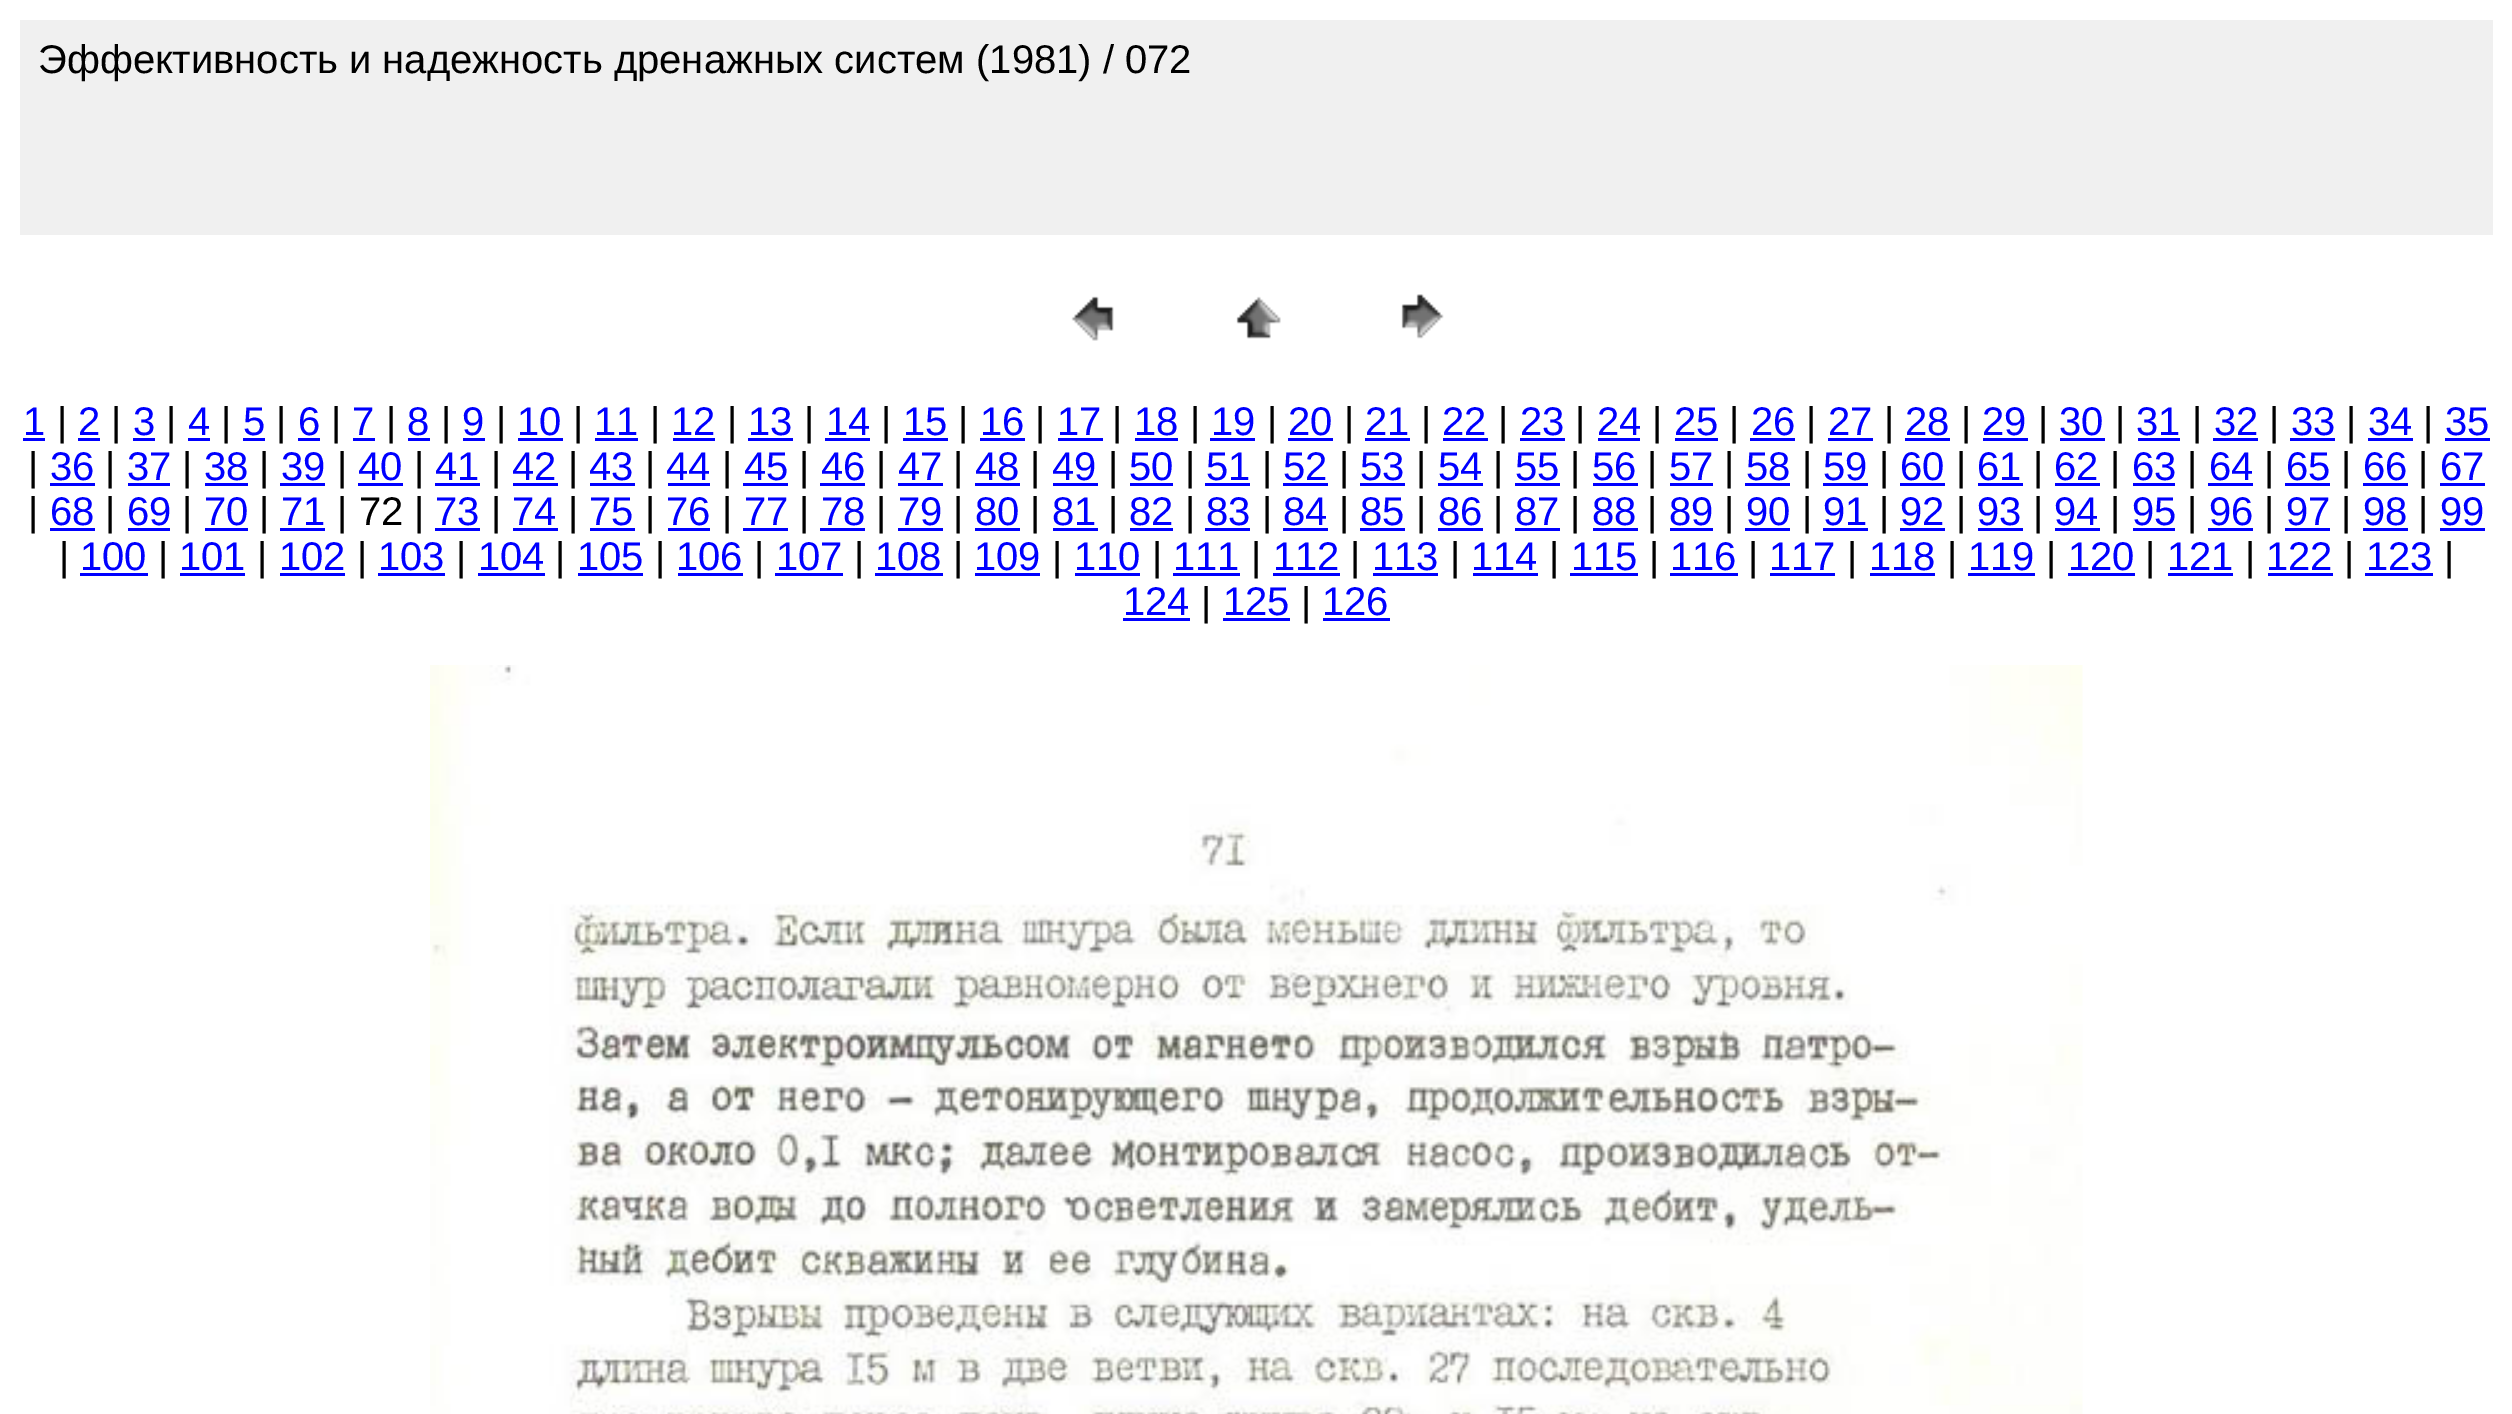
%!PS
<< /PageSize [2512 1414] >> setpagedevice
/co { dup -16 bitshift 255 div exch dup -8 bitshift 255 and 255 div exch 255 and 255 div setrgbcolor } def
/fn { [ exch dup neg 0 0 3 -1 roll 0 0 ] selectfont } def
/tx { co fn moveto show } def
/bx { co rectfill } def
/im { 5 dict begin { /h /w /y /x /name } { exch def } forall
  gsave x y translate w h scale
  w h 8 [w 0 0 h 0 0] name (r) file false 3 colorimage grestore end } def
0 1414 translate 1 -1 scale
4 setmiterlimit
0 0 2512 1414 16#FFFFFF bx
20 20 2473 215 16#F0F0F0 bx
(media/1.raw) 1071 296 43 45 im
(media/2.raw) 1236 296 45 43 im
(media/3.raw) 1401 294 43 45 im
23 438 22 3 16#0000FF bx
78 438 22 3 16#0000FF bx
133 438 22 3 16#0000FF bx
188 438 22 3 16#0000FF bx
243 438 22 3 16#0000FF bx
298 438 22 3 16#0000FF bx
353 438 22 3 16#0000FF bx
408 438 22 3 16#0000FF bx
463 438 22 3 16#0000FF bx
518 438 45 3 16#0000FF bx
595 438 43 3 16#0000FF bx
673 438 42 3 16#0000FF bx
748 438 45 3 16#0000FF bx
825 438 45 3 16#0000FF bx
903 438 45 3 16#0000FF bx
980 438 45 3 16#0000FF bx
1058 438 45 3 16#0000FF bx
1135 438 43 3 16#0000FF bx
1210 438 45 3 16#0000FF bx
1288 438 45 3 16#0000FF bx
1365 438 45 3 16#0000FF bx
1443 438 45 3 16#0000FF bx
1520 438 45 3 16#0000FF bx
1598 438 42 3 16#0000FF bx
1675 438 43 3 16#0000FF bx
1750 438 45 3 16#0000FF bx
1828 438 45 3 16#0000FF bx
1905 438 45 3 16#0000FF bx
1983 438 45 3 16#0000FF bx
2060 438 45 3 16#0000FF bx
2138 438 42 3 16#0000FF bx
2213 438 45 3 16#0000FF bx
2290 438 45 3 16#0000FF bx
2368 438 45 3 16#0000FF bx
2445 438 45 3 16#0000FF bx
50 483 45 3 16#0000FF bx
128 483 42 3 16#0000FF bx
205 483 43 3 16#0000FF bx
280 483 45 3 16#0000FF bx
358 483 45 3 16#0000FF bx
435 483 45 3 16#0000FF bx
513 483 45 3 16#0000FF bx
590 483 45 3 16#0000FF bx
668 483 42 3 16#0000FF bx
743 483 45 3 16#0000FF bx
820 483 45 3 16#0000FF bx
898 483 45 3 16#0000FF bx
975 483 45 3 16#0000FF bx
1053 483 45 3 16#0000FF bx
1130 483 43 3 16#0000FF bx
1205 483 45 3 16#0000FF bx
1283 483 45 3 16#0000FF bx
1360 483 45 3 16#0000FF bx
1438 483 45 3 16#0000FF bx
1515 483 45 3 16#0000FF bx
1593 483 45 3 16#0000FF bx
1670 483 43 3 16#0000FF bx
1745 483 45 3 16#0000FF bx
1823 483 45 3 16#0000FF bx
1900 483 45 3 16#0000FF bx
1978 483 45 3 16#0000FF bx
2055 483 45 3 16#0000FF bx
2133 483 42 3 16#0000FF bx
2208 483 45 3 16#0000FF bx
2285 483 45 3 16#0000FF bx
2363 483 45 3 16#0000FF bx
2440 483 45 3 16#0000FF bx
50 528 45 3 16#0000FF bx
128 528 42 3 16#0000FF bx
205 528 43 3 16#0000FF bx
280 528 45 3 16#0000FF bx
435 528 45 3 16#0000FF bx
513 528 45 3 16#0000FF bx
590 528 45 3 16#0000FF bx
668 528 42 3 16#0000FF bx
743 528 45 3 16#0000FF bx
820 528 45 3 16#0000FF bx
898 528 45 3 16#0000FF bx
975 528 45 3 16#0000FF bx
1053 528 45 3 16#0000FF bx
1130 528 43 3 16#0000FF bx
1205 528 45 3 16#0000FF bx
1283 528 45 3 16#0000FF bx
1360 528 45 3 16#0000FF bx
1438 528 45 3 16#0000FF bx
1515 528 45 3 16#0000FF bx
1593 528 45 3 16#0000FF bx
1670 528 43 3 16#0000FF bx
1745 528 45 3 16#0000FF bx
1823 528 45 3 16#0000FF bx
1900 528 45 3 16#0000FF bx
1978 528 45 3 16#0000FF bx
2055 528 45 3 16#0000FF bx
2133 528 42 3 16#0000FF bx
2208 528 45 3 16#0000FF bx
2285 528 45 3 16#0000FF bx
2363 528 45 3 16#0000FF bx
2440 528 45 3 16#0000FF bx
80 573 68 3 16#0000FF bx
180 573 65 3 16#0000FF bx
280 573 65 3 16#0000FF bx
378 573 67 3 16#0000FF bx
478 573 67 3 16#0000FF bx
578 573 65 3 16#0000FF bx
678 573 65 3 16#0000FF bx
775 573 68 3 16#0000FF bx
875 573 68 3 16#0000FF bx
975 573 65 3 16#0000FF bx
1075 573 65 3 16#0000FF bx
1173 573 67 3 16#0000FF bx
1273 573 67 3 16#0000FF bx
1373 573 65 3 16#0000FF bx
1473 573 65 3 16#0000FF bx
1570 573 68 3 16#0000FF bx
1670 573 68 3 16#0000FF bx
1770 573 65 3 16#0000FF bx
1870 573 65 3 16#0000FF bx
1968 573 67 3 16#0000FF bx
2068 573 67 3 16#0000FF bx
2168 573 65 3 16#0000FF bx
2268 573 65 3 16#0000FF bx
2365 573 68 3 16#0000FF bx
1123 618 67 3 16#0000FF bx
1223 618 67 3 16#0000FF bx
1323 618 67 3 16#0000FF bx
(media/4.raw) 430 665 1653 749 im
(Эффективность и надежность дренажных систем \(1981\) / 072) 38 73 /LiberationSans-Regular 40 16#000000 tx
(1) 23 435 /LiberationSans-Regular 40 16#0000FF tx
(|) 57 435 /LiberationSans-Regular 40 16#000000 tx
(2) 78 435 /LiberationSans-Regular 40 16#0000FF tx
(|) 111 435 /LiberationSans-Regular 40 16#000000 tx
(3) 133 435 /LiberationSans-Regular 40 16#0000FF tx
(|) 166 435 /LiberationSans-Regular 40 16#000000 tx
(4) 188 435 /LiberationSans-Regular 40 16#0000FF tx
(|) 221 435 /LiberationSans-Regular 40 16#000000 tx
(5) 243 435 /LiberationSans-Regular 40 16#0000FF tx
(|) 276 435 /LiberationSans-Regular 40 16#000000 tx
(6) 298 435 /LiberationSans-Regular 40 16#0000FF tx
(|) 331 435 /LiberationSans-Regular 40 16#000000 tx
(7) 352 435 /LiberationSans-Regular 40 16#0000FF tx
(|) 386 435 /LiberationSans-Regular 40 16#000000 tx
(8) 407 435 /LiberationSans-Regular 40 16#0000FF tx
(|) 441 435 /LiberationSans-Regular 40 16#000000 tx
(9) 462 435 /LiberationSans-Regular 40 16#0000FF tx
(|) 496 435 /LiberationSans-Regular 40 16#000000 tx
(10) 517 435 /LiberationSans-Regular 40 16#0000FF tx
(|) 573 435 /LiberationSans-Regular 40 16#000000 tx
(11) 594 435 /LiberationSans-Regular 40 16#0000FF tx
(|) 650 435 /LiberationSans-Regular 40 16#000000 tx
(12) 671 435 /LiberationSans-Regular 40 16#0000FF tx
(|) 727 435 /LiberationSans-Regular 40 16#000000 tx
(13) 748 435 /LiberationSans-Regular 40 16#0000FF tx
(|) 804 435 /LiberationSans-Regular 40 16#000000 tx
(14) 826 435 /LiberationSans-Regular 40 16#0000FF tx
(|) 881 435 /LiberationSans-Regular 40 16#000000 tx
(15) 903 435 /LiberationSans-Regular 40 16#0000FF tx
(|) 958 435 /LiberationSans-Regular 40 16#000000 tx
(16) 980 435 /LiberationSans-Regular 40 16#0000FF tx
(|) 1035 435 /LiberationSans-Regular 40 16#000000 tx
(17) 1057 435 /LiberationSans-Regular 40 16#0000FF tx
(|) 1112 435 /LiberationSans-Regular 40 16#000000 tx
(18) 1134 435 /LiberationSans-Regular 40 16#0000FF tx
(|) 1190 435 /LiberationSans-Regular 40 16#000000 tx
(19) 1211 435 /LiberationSans-Regular 40 16#0000FF tx
(|) 1267 435 /LiberationSans-Regular 40 16#000000 tx
(20) 1288 435 /LiberationSans-Regular 40 16#0000FF tx
(|) 1344 435 /LiberationSans-Regular 40 16#000000 tx
(21) 1365 435 /LiberationSans-Regular 40 16#0000FF tx
(|) 1421 435 /LiberationSans-Regular 40 16#000000 tx
(22) 1442 435 /LiberationSans-Regular 40 16#0000FF tx
(|) 1498 435 /LiberationSans-Regular 40 16#000000 tx
(23) 1520 435 /LiberationSans-Regular 40 16#0000FF tx
(|) 1575 435 /LiberationSans-Regular 40 16#000000 tx
(24) 1597 435 /LiberationSans-Regular 40 16#0000FF tx
(|) 1652 435 /LiberationSans-Regular 40 16#000000 tx
(25) 1674 435 /LiberationSans-Regular 40 16#0000FF tx
(|) 1729 435 /LiberationSans-Regular 40 16#000000 tx
(26) 1751 435 /LiberationSans-Regular 40 16#0000FF tx
(|) 1806 435 /LiberationSans-Regular 40 16#000000 tx
(27) 1828 435 /LiberationSans-Regular 40 16#0000FF tx
(|) 1884 435 /LiberationSans-Regular 40 16#000000 tx
(28) 1905 435 /LiberationSans-Regular 40 16#0000FF tx
(|) 1961 435 /LiberationSans-Regular 40 16#000000 tx
(29) 1982 435 /LiberationSans-Regular 40 16#0000FF tx
(|) 2038 435 /LiberationSans-Regular 40 16#000000 tx
(30) 2059 435 /LiberationSans-Regular 40 16#0000FF tx
(|) 2115 435 /LiberationSans-Regular 40 16#000000 tx
(31) 2136 435 /LiberationSans-Regular 40 16#0000FF tx
(|) 2192 435 /LiberationSans-Regular 40 16#000000 tx
(32) 2214 435 /LiberationSans-Regular 40 16#0000FF tx
(|) 2269 435 /LiberationSans-Regular 40 16#000000 tx
(33) 2291 435 /LiberationSans-Regular 40 16#0000FF tx
(|) 2346 435 /LiberationSans-Regular 40 16#000000 tx
(34) 2368 435 /LiberationSans-Regular 40 16#0000FF tx
(|) 2423 435 /LiberationSans-Regular 40 16#000000 tx
(35) 2445 435 /LiberationSans-Regular 40 16#0000FF tx
(|) 28 480 /LiberationSans-Regular 40 16#000000 tx
(36) 50 480 /LiberationSans-Regular 40 16#0000FF tx
(|) 105 480 /LiberationSans-Regular 40 16#000000 tx
(37) 127 480 /LiberationSans-Regular 40 16#0000FF tx
(|) 182 480 /LiberationSans-Regular 40 16#000000 tx
(38) 204 480 /LiberationSans-Regular 40 16#0000FF tx
(|) 259 480 /LiberationSans-Regular 40 16#000000 tx
(39) 281 480 /LiberationSans-Regular 40 16#0000FF tx
(|) 337 480 /LiberationSans-Regular 40 16#000000 tx
(40) 358 480 /LiberationSans-Regular 40 16#0000FF tx
(|) 414 480 /LiberationSans-Regular 40 16#000000 tx
(41) 435 480 /LiberationSans-Regular 40 16#0000FF tx
(|) 491 480 /LiberationSans-Regular 40 16#000000 tx
(42) 512 480 /LiberationSans-Regular 40 16#0000FF tx
(|) 568 480 /LiberationSans-Regular 40 16#000000 tx
(43) 589 480 /LiberationSans-Regular 40 16#0000FF tx
(|) 645 480 /LiberationSans-Regular 40 16#000000 tx
(44) 666 480 /LiberationSans-Regular 40 16#0000FF tx
(|) 722 480 /LiberationSans-Regular 40 16#000000 tx
(45) 744 480 /LiberationSans-Regular 40 16#0000FF tx
(|) 799 480 /LiberationSans-Regular 40 16#000000 tx
(46) 821 480 /LiberationSans-Regular 40 16#0000FF tx
(|) 876 480 /LiberationSans-Regular 40 16#000000 tx
(47) 898 480 /LiberationSans-Regular 40 16#0000FF tx
(|) 953 480 /LiberationSans-Regular 40 16#000000 tx
(48) 975 480 /LiberationSans-Regular 40 16#0000FF tx
(|) 1030 480 /LiberationSans-Regular 40 16#000000 tx
(49) 1052 480 /LiberationSans-Regular 40 16#0000FF tx
(|) 1108 480 /LiberationSans-Regular 40 16#000000 tx
(50) 1129 480 /LiberationSans-Regular 40 16#0000FF tx
(|) 1185 480 /LiberationSans-Regular 40 16#000000 tx
(51) 1206 480 /LiberationSans-Regular 40 16#0000FF tx
(|) 1262 480 /LiberationSans-Regular 40 16#000000 tx
(52) 1283 480 /LiberationSans-Regular 40 16#0000FF tx
(|) 1339 480 /LiberationSans-Regular 40 16#000000 tx
(53) 1360 480 /LiberationSans-Regular 40 16#0000FF tx
(|) 1416 480 /LiberationSans-Regular 40 16#000000 tx
(54) 1438 480 /LiberationSans-Regular 40 16#0000FF tx
(|) 1493 480 /LiberationSans-Regular 40 16#000000 tx
(55) 1515 480 /LiberationSans-Regular 40 16#0000FF tx
(|) 1570 480 /LiberationSans-Regular 40 16#000000 tx
(56) 1592 480 /LiberationSans-Regular 40 16#0000FF tx
(|) 1647 480 /LiberationSans-Regular 40 16#000000 tx
(57) 1669 480 /LiberationSans-Regular 40 16#0000FF tx
(|) 1724 480 /LiberationSans-Regular 40 16#000000 tx
(58) 1746 480 /LiberationSans-Regular 40 16#0000FF tx
(|) 1802 480 /LiberationSans-Regular 40 16#000000 tx
(59) 1823 480 /LiberationSans-Regular 40 16#0000FF tx
(|) 1879 480 /LiberationSans-Regular 40 16#000000 tx
(60) 1900 480 /LiberationSans-Regular 40 16#0000FF tx
(|) 1956 480 /LiberationSans-Regular 40 16#000000 tx
(61) 1977 480 /LiberationSans-Regular 40 16#0000FF tx
(|) 2033 480 /LiberationSans-Regular 40 16#000000 tx
(62) 2054 480 /LiberationSans-Regular 40 16#0000FF tx
(|) 2110 480 /LiberationSans-Regular 40 16#000000 tx
(63) 2132 480 /LiberationSans-Regular 40 16#0000FF tx
(|) 2187 480 /LiberationSans-Regular 40 16#000000 tx
(64) 2209 480 /LiberationSans-Regular 40 16#0000FF tx
(|) 2264 480 /LiberationSans-Regular 40 16#000000 tx
(65) 2286 480 /LiberationSans-Regular 40 16#0000FF tx
(|) 2341 480 /LiberationSans-Regular 40 16#000000 tx
(66) 2363 480 /LiberationSans-Regular 40 16#0000FF tx
(|) 2418 480 /LiberationSans-Regular 40 16#000000 tx
(67) 2440 480 /LiberationSans-Regular 40 16#0000FF tx
(|) 28 525 /LiberationSans-Regular 40 16#000000 tx
(68) 50 525 /LiberationSans-Regular 40 16#0000FF tx
(|) 105 525 /LiberationSans-Regular 40 16#000000 tx
(69) 127 525 /LiberationSans-Regular 40 16#0000FF tx
(|) 182 525 /LiberationSans-Regular 40 16#000000 tx
(70) 204 525 /LiberationSans-Regular 40 16#0000FF tx
(|) 259 525 /LiberationSans-Regular 40 16#000000 tx
(71) 281 525 /LiberationSans-Regular 40 16#0000FF tx
(| 72 |) 337 525 /LiberationSans-Regular 40 16#000000 tx
(73) 435 525 /LiberationSans-Regular 40 16#0000FF tx
(|) 491 525 /LiberationSans-Regular 40 16#000000 tx
(74) 512 525 /LiberationSans-Regular 40 16#0000FF tx
(|) 568 525 /LiberationSans-Regular 40 16#000000 tx
(75) 589 525 /LiberationSans-Regular 40 16#0000FF tx
(|) 645 525 /LiberationSans-Regular 40 16#000000 tx
(76) 666 525 /LiberationSans-Regular 40 16#0000FF tx
(|) 722 525 /LiberationSans-Regular 40 16#000000 tx
(77) 744 525 /LiberationSans-Regular 40 16#0000FF tx
(|) 799 525 /LiberationSans-Regular 40 16#000000 tx
(78) 821 525 /LiberationSans-Regular 40 16#0000FF tx
(|) 876 525 /LiberationSans-Regular 40 16#000000 tx
(79) 898 525 /LiberationSans-Regular 40 16#0000FF tx
(|) 953 525 /LiberationSans-Regular 40 16#000000 tx
(80) 975 525 /LiberationSans-Regular 40 16#0000FF tx
(|) 1030 525 /LiberationSans-Regular 40 16#000000 tx
(81) 1052 525 /LiberationSans-Regular 40 16#0000FF tx
(|) 1108 525 /LiberationSans-Regular 40 16#000000 tx
(82) 1129 525 /LiberationSans-Regular 40 16#0000FF tx
(|) 1185 525 /LiberationSans-Regular 40 16#000000 tx
(83) 1206 525 /LiberationSans-Regular 40 16#0000FF tx
(|) 1262 525 /LiberationSans-Regular 40 16#000000 tx
(84) 1283 525 /LiberationSans-Regular 40 16#0000FF tx
(|) 1339 525 /LiberationSans-Regular 40 16#000000 tx
(85) 1360 525 /LiberationSans-Regular 40 16#0000FF tx
(|) 1416 525 /LiberationSans-Regular 40 16#000000 tx
(86) 1438 525 /LiberationSans-Regular 40 16#0000FF tx
(|) 1493 525 /LiberationSans-Regular 40 16#000000 tx
(87) 1515 525 /LiberationSans-Regular 40 16#0000FF tx
(|) 1570 525 /LiberationSans-Regular 40 16#000000 tx
(88) 1592 525 /LiberationSans-Regular 40 16#0000FF tx
(|) 1647 525 /LiberationSans-Regular 40 16#000000 tx
(89) 1669 525 /LiberationSans-Regular 40 16#0000FF tx
(|) 1724 525 /LiberationSans-Regular 40 16#000000 tx
(90) 1746 525 /LiberationSans-Regular 40 16#0000FF tx
(|) 1802 525 /LiberationSans-Regular 40 16#000000 tx
(91) 1823 525 /LiberationSans-Regular 40 16#0000FF tx
(|) 1879 525 /LiberationSans-Regular 40 16#000000 tx
(92) 1900 525 /LiberationSans-Regular 40 16#0000FF tx
(|) 1956 525 /LiberationSans-Regular 40 16#000000 tx
(93) 1977 525 /LiberationSans-Regular 40 16#0000FF tx
(|) 2033 525 /LiberationSans-Regular 40 16#000000 tx
(94) 2054 525 /LiberationSans-Regular 40 16#0000FF tx
(|) 2110 525 /LiberationSans-Regular 40 16#000000 tx
(95) 2132 525 /LiberationSans-Regular 40 16#0000FF tx
(|) 2187 525 /LiberationSans-Regular 40 16#000000 tx
(96) 2209 525 /LiberationSans-Regular 40 16#0000FF tx
(|) 2264 525 /LiberationSans-Regular 40 16#000000 tx
(97) 2286 525 /LiberationSans-Regular 40 16#0000FF tx
(|) 2341 525 /LiberationSans-Regular 40 16#000000 tx
(98) 2363 525 /LiberationSans-Regular 40 16#0000FF tx
(|) 2418 525 /LiberationSans-Regular 40 16#000000 tx
(99) 2440 525 /LiberationSans-Regular 40 16#0000FF tx
(|) 59 570 /LiberationSans-Regular 40 16#000000 tx
(100) 80 570 /LiberationSans-Regular 40 16#0000FF tx
(|) 158 570 /LiberationSans-Regular 40 16#000000 tx
(101) 179 570 /LiberationSans-Regular 40 16#0000FF tx
(|) 257 570 /LiberationSans-Regular 40 16#000000 tx
(102) 279 570 /LiberationSans-Regular 40 16#0000FF tx
(|) 357 570 /LiberationSans-Regular 40 16#000000 tx
(103) 378 570 /LiberationSans-Regular 40 16#0000FF tx
(|) 456 570 /LiberationSans-Regular 40 16#000000 tx
(104) 478 570 /LiberationSans-Regular 40 16#0000FF tx
(|) 555 570 /LiberationSans-Regular 40 16#000000 tx
(105) 577 570 /LiberationSans-Regular 40 16#0000FF tx
(|) 655 570 /LiberationSans-Regular 40 16#000000 tx
(106) 676 570 /LiberationSans-Regular 40 16#0000FF tx
(|) 754 570 /LiberationSans-Regular 40 16#000000 tx
(107) 776 570 /LiberationSans-Regular 40 16#0000FF tx
(|) 854 570 /LiberationSans-Regular 40 16#000000 tx
(108) 875 570 /LiberationSans-Regular 40 16#0000FF tx
(|) 953 570 /LiberationSans-Regular 40 16#000000 tx
(109) 974 570 /LiberationSans-Regular 40 16#0000FF tx
(|) 1052 570 /LiberationSans-Regular 40 16#000000 tx
(110) 1074 570 /LiberationSans-Regular 40 16#0000FF tx
(|) 1152 570 /LiberationSans-Regular 40 16#000000 tx
(111) 1173 570 /LiberationSans-Regular 40 16#0000FF tx
(|) 1251 570 /LiberationSans-Regular 40 16#000000 tx
(112) 1273 570 /LiberationSans-Regular 40 16#0000FF tx
(|) 1350 570 /LiberationSans-Regular 40 16#000000 tx
(113) 1372 570 /LiberationSans-Regular 40 16#0000FF tx
(|) 1450 570 /LiberationSans-Regular 40 16#000000 tx
(114) 1471 570 /LiberationSans-Regular 40 16#0000FF tx
(|) 1549 570 /LiberationSans-Regular 40 16#000000 tx
(115) 1571 570 /LiberationSans-Regular 40 16#0000FF tx
(|) 1649 570 /LiberationSans-Regular 40 16#000000 tx
(116) 1670 570 /LiberationSans-Regular 40 16#0000FF tx
(|) 1748 570 /LiberationSans-Regular 40 16#000000 tx
(117) 1769 570 /LiberationSans-Regular 40 16#0000FF tx
(|) 1847 570 /LiberationSans-Regular 40 16#000000 tx
(118) 1869 570 /LiberationSans-Regular 40 16#0000FF tx
(|) 1947 570 /LiberationSans-Regular 40 16#000000 tx
(119) 1968 570 /LiberationSans-Regular 40 16#0000FF tx
(|) 2046 570 /LiberationSans-Regular 40 16#000000 tx
(120) 2068 570 /LiberationSans-Regular 40 16#0000FF tx
(|) 2145 570 /LiberationSans-Regular 40 16#000000 tx
(121) 2167 570 /LiberationSans-Regular 40 16#0000FF tx
(|) 2245 570 /LiberationSans-Regular 40 16#000000 tx
(122) 2266 570 /LiberationSans-Regular 40 16#0000FF tx
(|) 2344 570 /LiberationSans-Regular 40 16#000000 tx
(123) 2366 570 /LiberationSans-Regular 40 16#0000FF tx
(|) 2444 570 /LiberationSans-Regular 40 16#000000 tx
(124) 1123 615 /LiberationSans-Regular 40 16#0000FF tx
(|) 1201 615 /LiberationSans-Regular 40 16#000000 tx
(125) 1223 615 /LiberationSans-Regular 40 16#0000FF tx
(|) 1301 615 /LiberationSans-Regular 40 16#000000 tx
(126) 1322 615 /LiberationSans-Regular 40 16#0000FF tx
showpage
